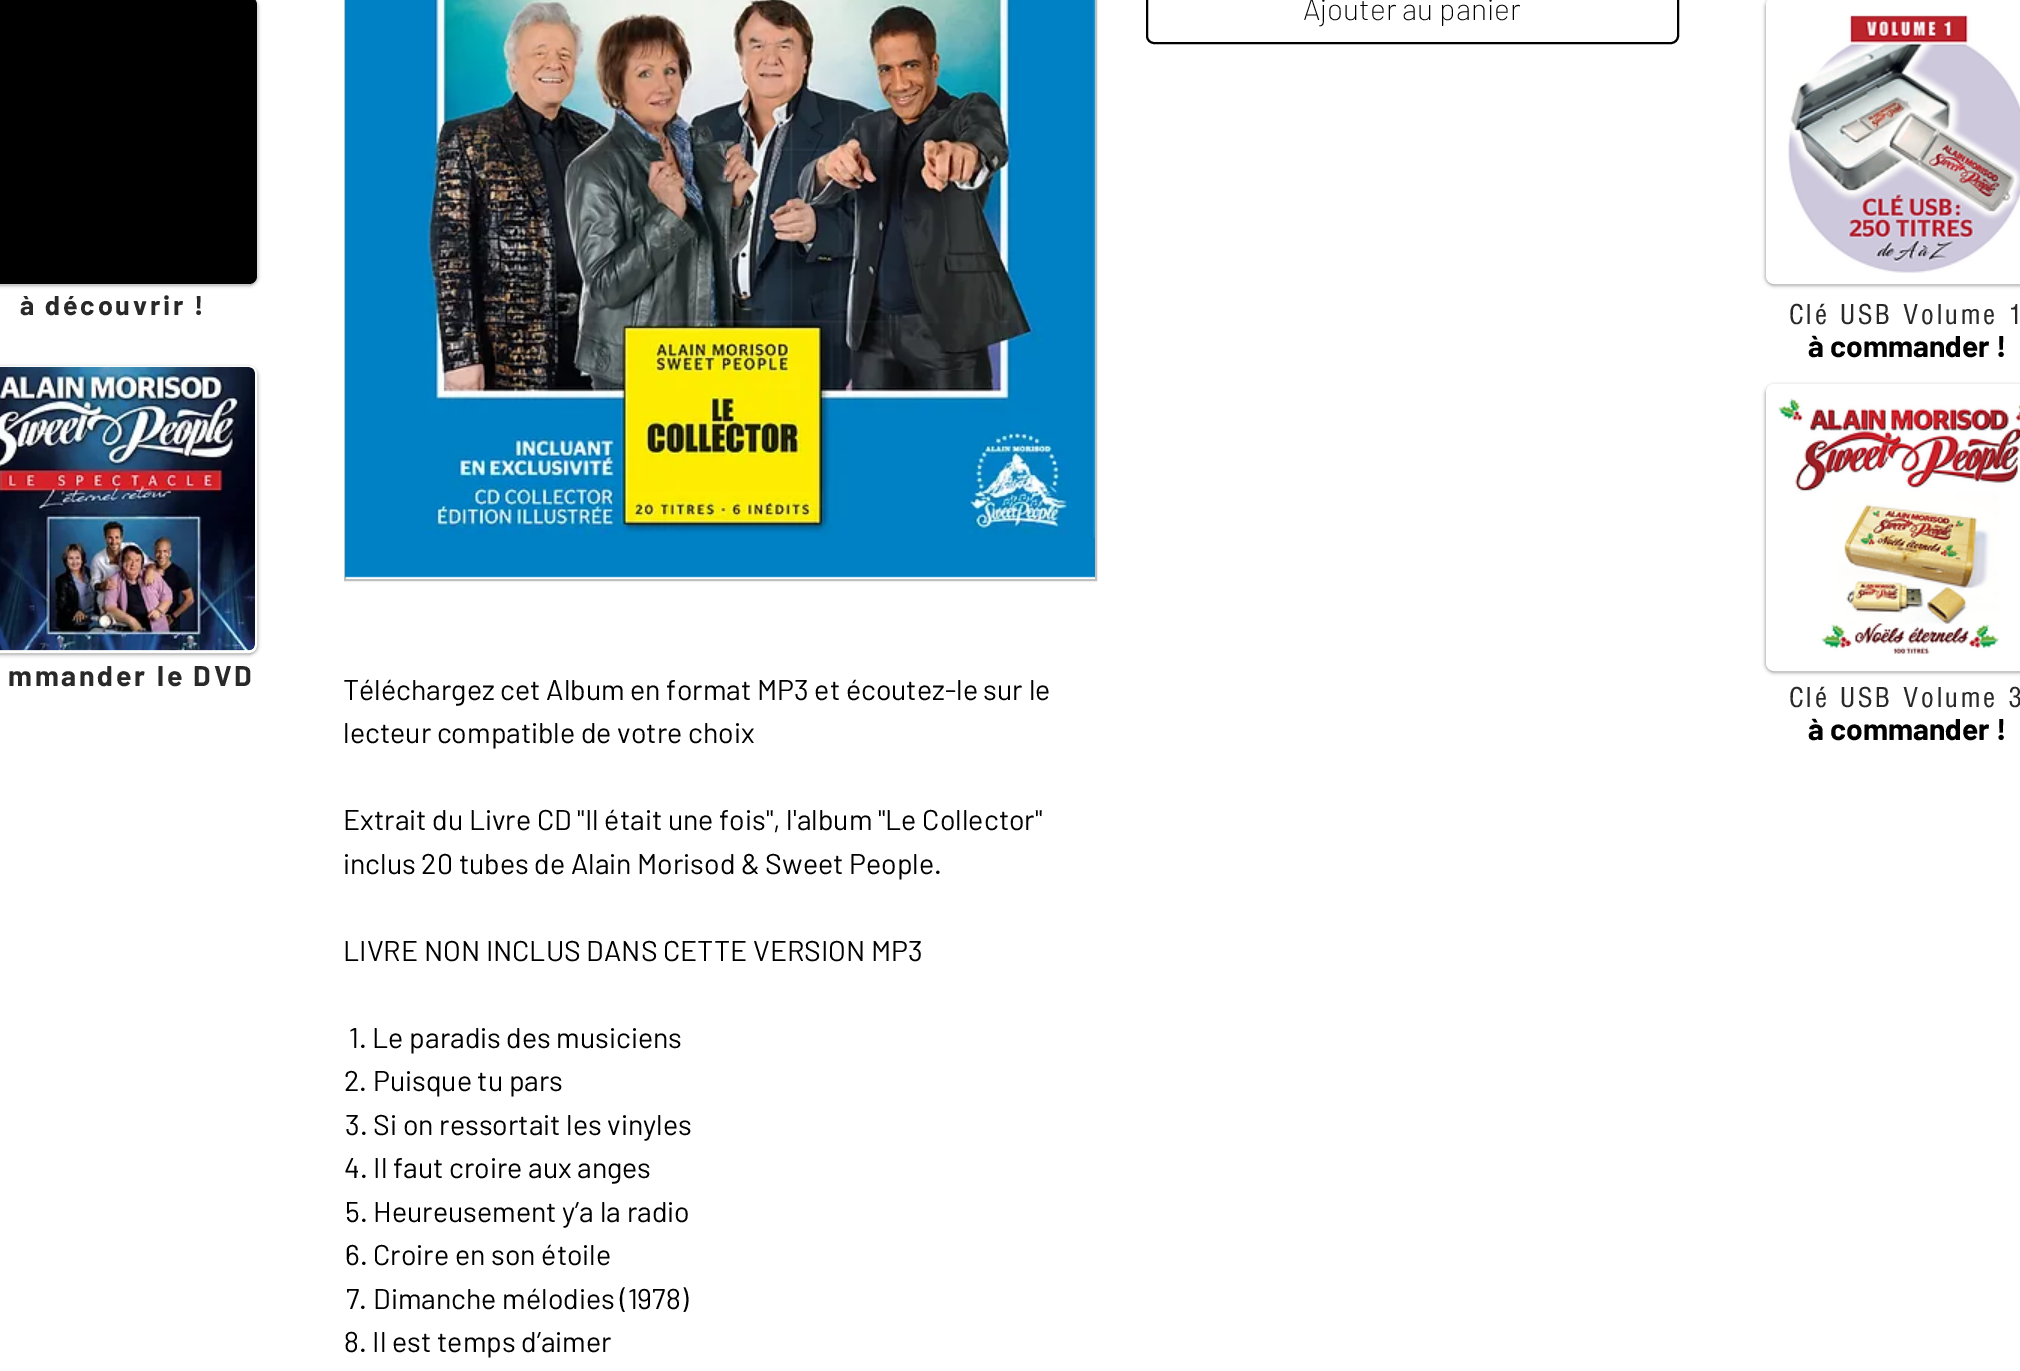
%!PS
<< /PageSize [2020 1371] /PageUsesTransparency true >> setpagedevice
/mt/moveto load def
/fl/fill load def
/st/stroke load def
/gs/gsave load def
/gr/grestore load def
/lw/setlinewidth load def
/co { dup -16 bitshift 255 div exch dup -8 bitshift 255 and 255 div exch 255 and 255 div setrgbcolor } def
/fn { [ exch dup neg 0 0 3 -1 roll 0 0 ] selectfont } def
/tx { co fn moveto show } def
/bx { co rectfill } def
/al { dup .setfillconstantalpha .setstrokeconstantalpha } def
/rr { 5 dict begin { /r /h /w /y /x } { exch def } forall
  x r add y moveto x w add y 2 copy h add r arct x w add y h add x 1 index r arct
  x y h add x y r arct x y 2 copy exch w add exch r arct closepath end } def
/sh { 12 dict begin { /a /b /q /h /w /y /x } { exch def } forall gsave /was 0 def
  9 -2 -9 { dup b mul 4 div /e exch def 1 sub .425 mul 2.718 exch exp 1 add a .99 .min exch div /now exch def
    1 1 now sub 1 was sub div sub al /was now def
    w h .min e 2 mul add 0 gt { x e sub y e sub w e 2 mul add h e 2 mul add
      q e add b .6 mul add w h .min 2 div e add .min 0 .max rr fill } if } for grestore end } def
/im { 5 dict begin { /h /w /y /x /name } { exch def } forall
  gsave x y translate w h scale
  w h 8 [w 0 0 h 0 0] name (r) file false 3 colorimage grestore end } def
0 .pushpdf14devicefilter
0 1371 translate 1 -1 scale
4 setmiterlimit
0 0 2020 1371 16#FFFFFF bx
16#000000 co
2 lw
1147 -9 531 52 7 rr st
16#BFBFBF co
345 -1 751 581 rectstroke
(media/1.raw) 345 0 750 578 im
16#000000 co
-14 -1 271 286 8 2 .5 sh
16#FFFFFF co
-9 -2 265 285 7 rr st
16#000000 co
-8 -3 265 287 8 rr fl
1766 -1 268 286 8 2 .5 sh
16#FFFFFF co
1767 -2 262 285 7 rr gs fl gr
st
(media/2.raw) 1788 15 232 258 im
16#000000 co
-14 368 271 286 8 2 .5 sh
16#FFFFFF co
-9 367 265 285 7 rr gs fl gr
st
(media/3.raw) 0 367 255 284 im
16#000000 co
1766 386 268 286 8 2 .5 sh
16#FFFFFF co
1767 385 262 285 7 rr gs fl gr
st
(media/4.raw) 1778 398 242 256 im
(Ajouter au panier) 1303 20 /Barlow-ExtraLight 30 16#000000 tx
(Téléchargez cet Album en format MP3 et écoutez-le sur le) 343 700 /Barlow-Regular 28.5 16#000000 tx
(lecteur compatible de votre choix) 343 743 /Barlow-Regular 28.5 16#000000 tx
(Extrait du Livre CD "Il était une fois", l'album "Le Collector") 343 830 /Barlow-Regular 28.5 16#000000 tx
(inclus 20 tubes de Alain Morisod & Sweet People.) 343 874 /Barlow-Regular 28.5 16#000000 tx
(LIVRE NON INCLUS DANS CETTE VERSION MP3) 343 961 /Barlow-Regular 28.5 16#000000 tx
(1. Le paradis des musiciens) 349 1048 /Barlow-Regular 28.5 16#000000 tx
(2. Puisque tu pars) 344 1091 /Barlow-Regular 28.5 16#000000 tx
(3. Si on ressortait les vinyles) 345 1135 /Barlow-Regular 28.5 16#000000 tx
(4. Il faut croire aux anges) 344 1178 /Barlow-Regular 28.5 16#000000 tx
(5. Heureusement y’a la radio) 345 1222 /Barlow-Regular 28.5 16#000000 tx
(6. Croire en son étoile) 345 1265 /Barlow-Regular 28.5 16#000000 tx
(7. Dimanche mélodies \(1978\)) 346 1309 /Barlow-Regular 28.5 16#000000 tx
(8. Il est temps d’aimer) 344 1352 /Barlow-Regular 28.5 16#000000 tx
/Barlow-Bold 27 fn
16#292929 co
20 315 mt 2.75 0 (à découvrir !) ashow
/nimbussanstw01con-Regular 30 fn
1789 324 mt 3 0 (Clé USB Volume 1) ashow
(à commander !) 1808 357 /Barlow-Bold 30 16#000000 tx
/Barlow-Bold 28.5 fn
16#292929 co
8 686 mt 2.8 0 (mmander le DVD) ashow
/nimbussanstw01con-Regular 30 fn
1789 707 mt 3 0 (Clé USB Volume 3) ashow
(à commander !) 1808 740 /Barlow-Bold 30 16#000000 tx
.poppdf14devicefilter showpage
